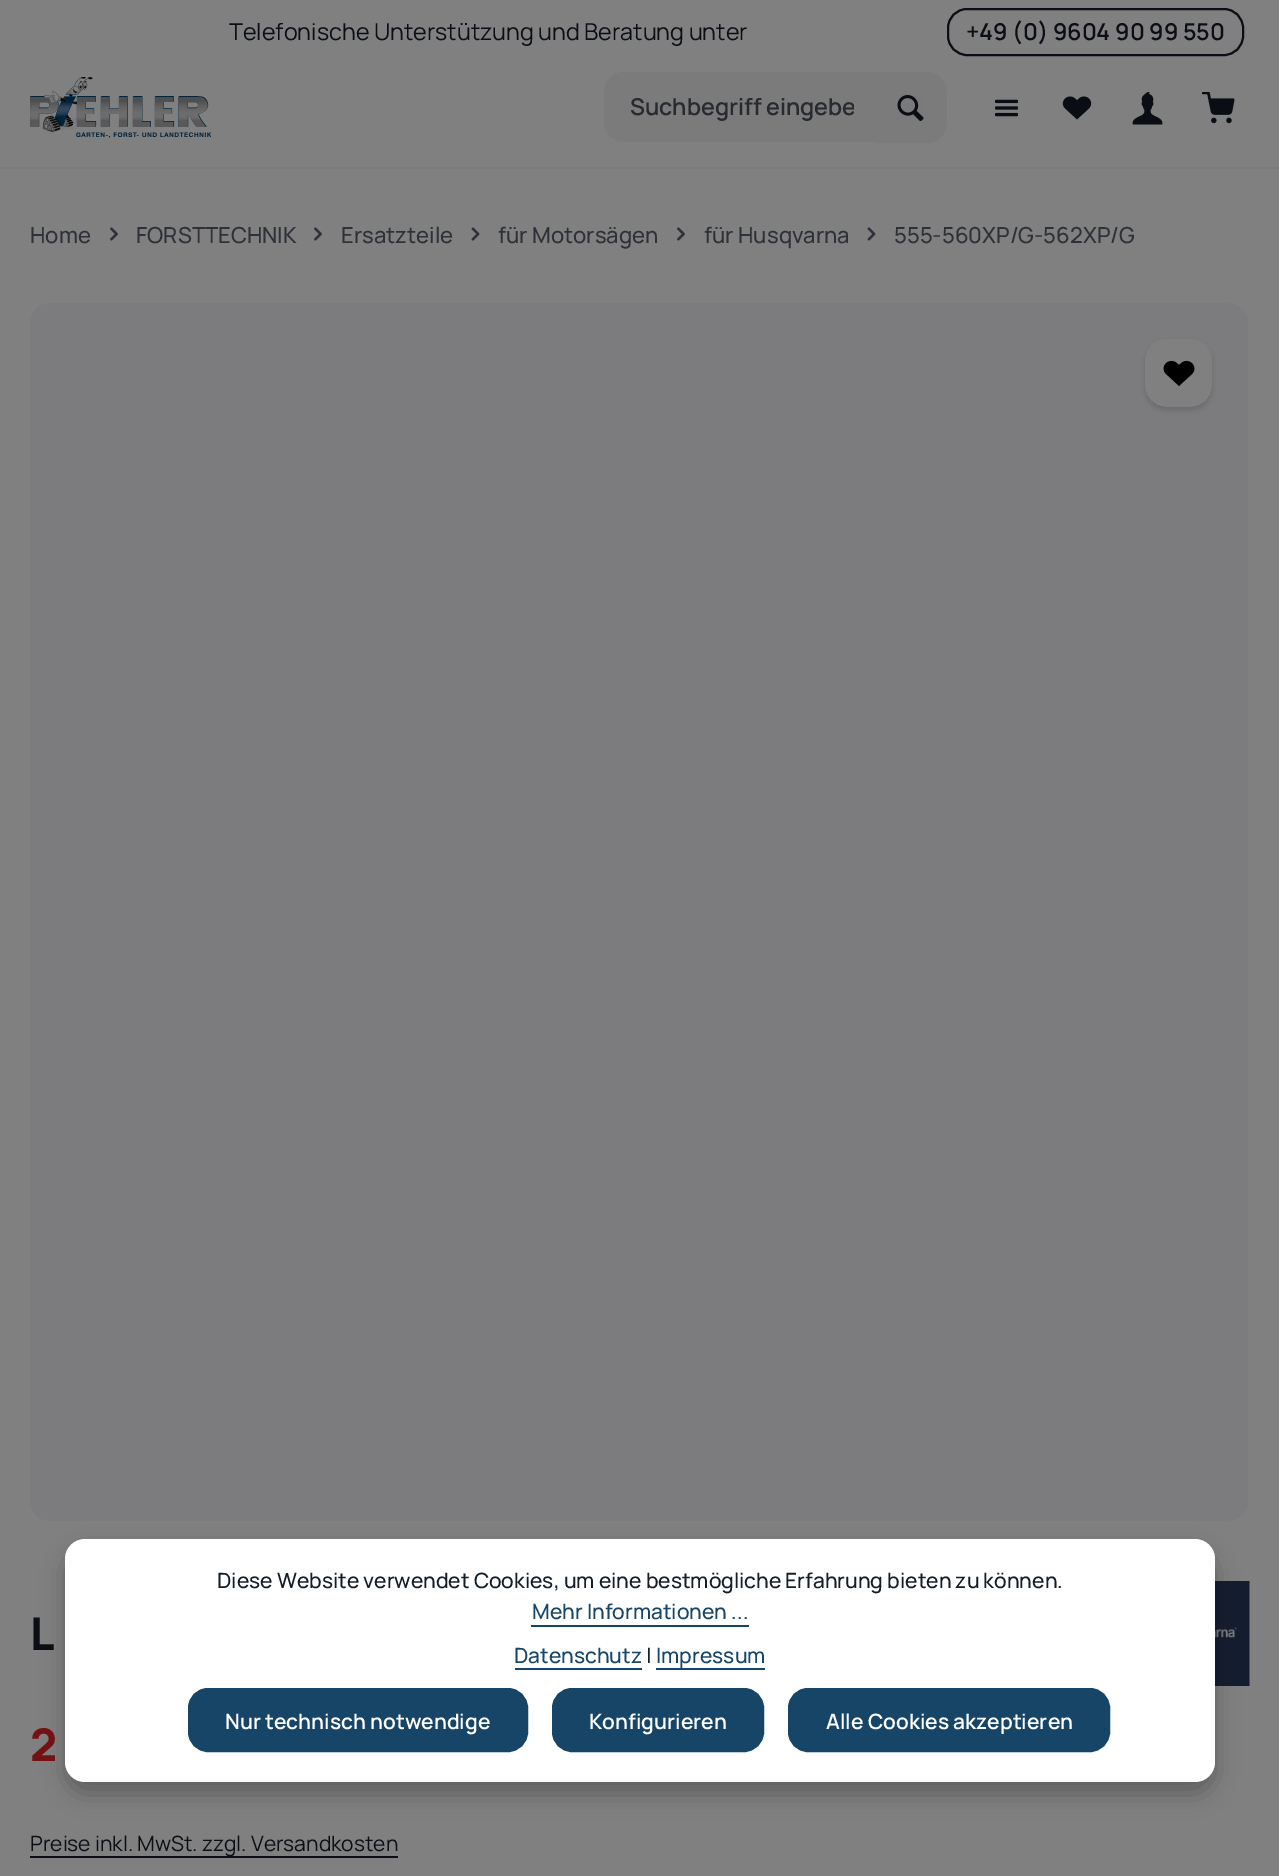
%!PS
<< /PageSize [1279 1876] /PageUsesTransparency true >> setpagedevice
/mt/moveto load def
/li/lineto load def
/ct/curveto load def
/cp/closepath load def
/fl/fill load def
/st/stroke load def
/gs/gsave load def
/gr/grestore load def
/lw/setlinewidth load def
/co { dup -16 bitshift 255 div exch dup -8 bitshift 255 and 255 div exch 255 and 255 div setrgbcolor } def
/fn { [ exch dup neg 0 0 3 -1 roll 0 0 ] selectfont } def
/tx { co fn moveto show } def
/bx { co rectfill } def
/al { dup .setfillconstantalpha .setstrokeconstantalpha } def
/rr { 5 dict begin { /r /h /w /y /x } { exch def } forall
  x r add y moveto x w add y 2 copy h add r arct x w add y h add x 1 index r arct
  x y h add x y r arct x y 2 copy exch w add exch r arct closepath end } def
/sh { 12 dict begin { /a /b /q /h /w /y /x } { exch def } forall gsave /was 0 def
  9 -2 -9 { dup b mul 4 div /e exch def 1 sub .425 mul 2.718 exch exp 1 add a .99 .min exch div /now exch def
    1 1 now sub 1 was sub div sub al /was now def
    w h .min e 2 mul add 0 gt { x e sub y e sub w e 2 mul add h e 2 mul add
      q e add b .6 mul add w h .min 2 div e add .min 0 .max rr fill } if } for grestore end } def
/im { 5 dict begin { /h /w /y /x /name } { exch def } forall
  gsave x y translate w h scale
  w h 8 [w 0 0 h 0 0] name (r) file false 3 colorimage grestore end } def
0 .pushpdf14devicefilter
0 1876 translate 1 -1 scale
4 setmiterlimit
0 0 1279 1876 16#808080 bx
16#0B0F15 co
2 lw
948 9 295 46 19 rr st
(media/1.raw) 30 77 182 61 im
16#7B7B7C co
624 74 mt 878 74 li 878 141 li 624 141 li 614 141 606 133 606 123 ct 606 92 li 606 82 614 74 624 74 ct cp fl
624 72 mt 878 72 li 878 142 li 624 142 li 613 142 604 134 604 123 ct 604 92 li 604 81 613 72 624 72 ct cp 624 74 mt 878 74 li 878 141 li 624 141 li 614 141 606 133 606 123 ct 606 92 li 606 82 614 74 624 74 ct cp eofill
876 72 mt 927 72 li 938 72 947 81 947 92 ct 947 123 li 947 134 938 143 927 143 ct 876 143 li cp fl
(media/2.raw) 897 95 27 26 im
(media/3.raw) 995 99 23 18 im
(media/4.raw) 1062 96 30 24 im
(media/5.raw) 1132 92 31 33 im
(media/6.raw) 1202 92 33 32 im
0 167 1279 2 16#7B7B7C bx
(media/7.raw) 110 227 8 14 im
(media/7.raw) 314 227 8 14 im
(media/8.raw) 471 227 9 14 im
(media/7.raw) 677 227 8 14 im
(media/8.raw) 867 227 9 14 im
16#7C7C7E co
30 303 1218 1218 20 rr fl
16#808080 co
1145 339 67 68 20 rr fl
gs
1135 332 mt 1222 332 li 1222 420 li 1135 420 li cp 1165 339 mt 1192 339 li 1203 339 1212 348 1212 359 ct 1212 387 li 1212 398 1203 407 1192 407 ct 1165 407 li 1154 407 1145 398 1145 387 ct 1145 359 li 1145 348 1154 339 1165 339 ct cp eoclip newpath
16#000000 co
1145 342 67 68 20 3 .15 sh
gr
(media/9.raw) 1163 360 32 26 im
(media/10.raw) 1215 1581 35 105 im
30 1856 368 2 16#0B0F15 bx
16#000000 co
65 1551 1150 243 20 12 .25 sh
16#FFFFFF co
65 1539 1150 243 20 rr fl
531 1625 218 2 16#174567 bx
515 1668 127 2 16#174567 bx
656 1668 109 2 16#174567 bx
189 1689 338 62 19 rr gs fl gr
st
553 1689 210 62 19 rr gs fl gr
st
789 1689 320 62 19 rr gs fl gr
st
(Telefonische Unterstützung und Beratung unter) 229 40 /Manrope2-ExtraLight 23.25 16#0B0F15 tx
(+49 \(0\) 9604 90 99 550) 966 40 /Manrope-ExtraLight 23.25 16#0B0F15 tx
gs
630 92 224 31 rectclip
(Suchbegriff eingebe) 630 115 /Manrope-ExtraLight 23.25 16#272A2F tx
gr
(Home) 30 243 /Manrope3-ExtraLight 22.1 16#2E3238 tx
(FORSTTECHNIK) 136 243 /Manrope3-ExtraLight 22.1 16#2E3238 tx
(Ersatzteile) 341 243 /Manrope3-ExtraLight 22.1 16#2E3238 tx
(für Motorsägen) 498 243 /Manrope3-ExtraLight 22.1 16#2E3238 tx
(für Husqvarna) 704 243 /Manrope3-ExtraLight 22.1 16#2E3238 tx
(555-560XP/G-562XP/G) 894 243 /Manrope3-ExtraLight 22.1 16#2E3238 tx
(L) 30 1650 /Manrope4-ExtraLight 45 16#0B0F15 tx
(2) 30 1761 /Manrope4-ExtraLight 45 16#731214 tx
(Preise inkl. MwSt. zzgl. Versandkosten) 30 1851 /Manrope2-ExtraLight 21 16#0B0F15 tx
(Diese Website verwendet Cookies, um eine bestmögliche Erfahrung bieten zu können.) 217 1588 /Manrope3-ExtraLight 21 16#151D29 tx
(Mehr Informationen ...) 532 1619 /Manrope3-ExtraLight 21 16#174567 tx
(Datenschutz) 514 1663 /Manrope3-ExtraLight 21 16#174567 tx
(|) 646 1663 /Manrope3-ExtraLight 21 16#151D29 tx
(Impressum) 656 1663 /Manrope3-ExtraLight 21 16#174567 tx
(Nur technisch notwendige) 225 1729 /Manrope-ExtraLight 21 16#FFFFFF tx
(Konfigurieren) 589 1729 /Manrope-ExtraLight 21 16#FFFFFF tx
(Alle Cookies akzeptieren) 826 1729 /Manrope-ExtraLight 21 16#FFFFFF tx
.poppdf14devicefilter showpage
